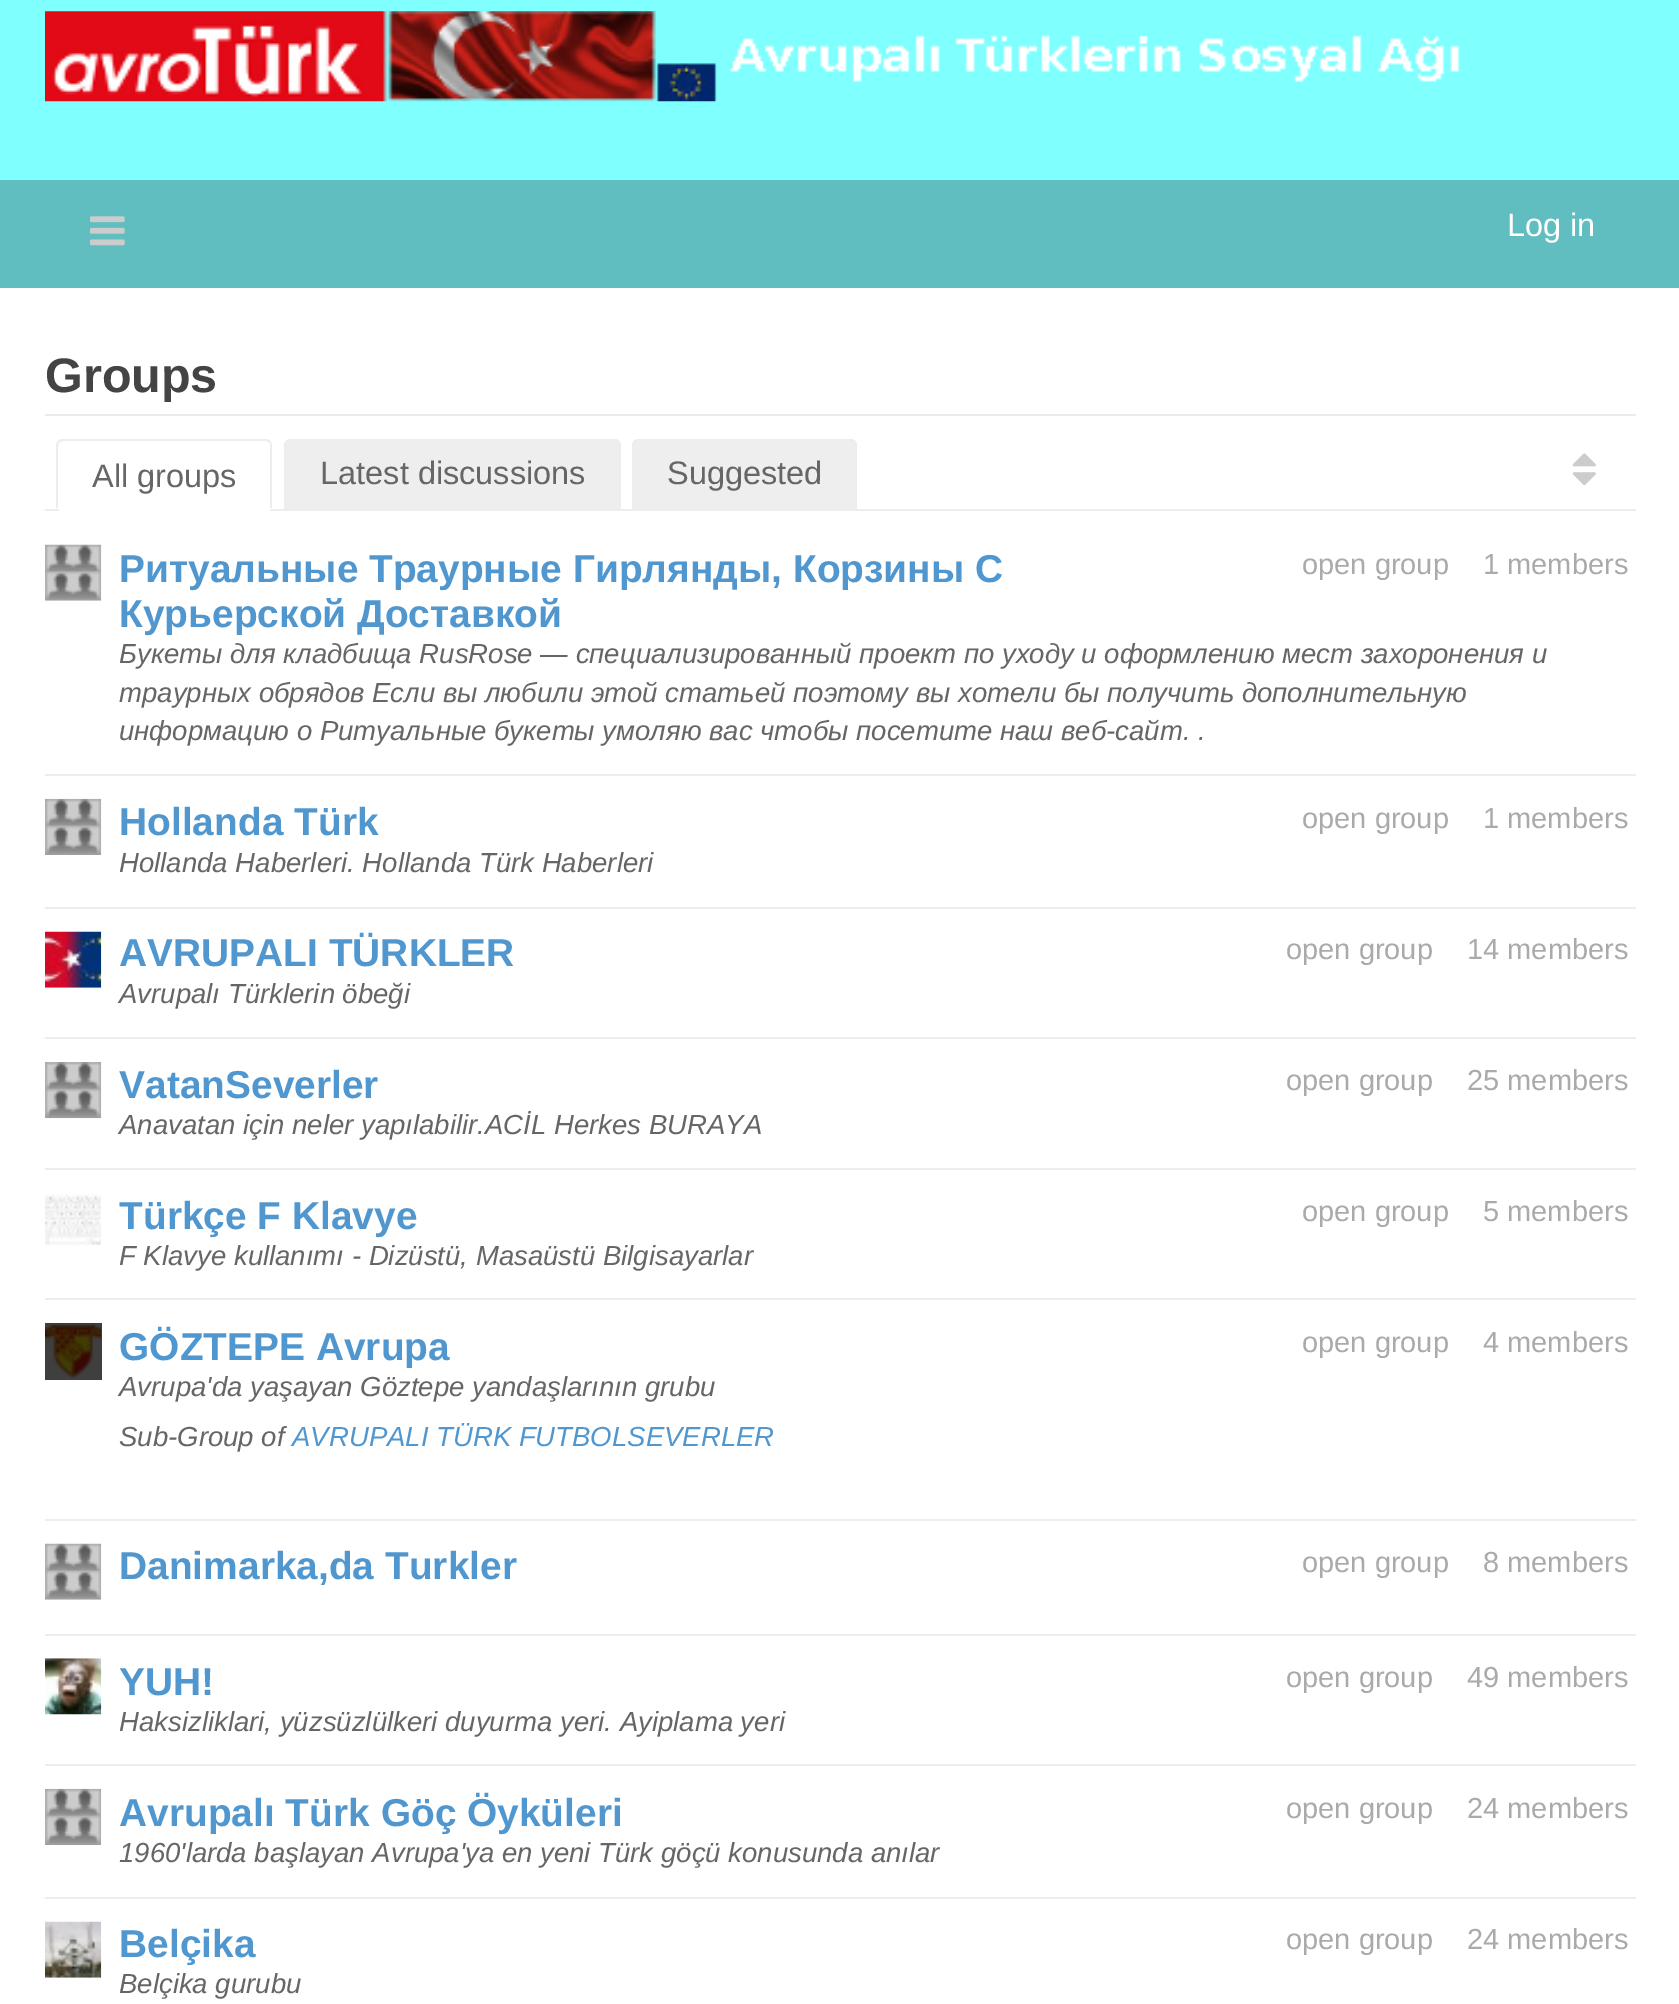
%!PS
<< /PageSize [1679 2004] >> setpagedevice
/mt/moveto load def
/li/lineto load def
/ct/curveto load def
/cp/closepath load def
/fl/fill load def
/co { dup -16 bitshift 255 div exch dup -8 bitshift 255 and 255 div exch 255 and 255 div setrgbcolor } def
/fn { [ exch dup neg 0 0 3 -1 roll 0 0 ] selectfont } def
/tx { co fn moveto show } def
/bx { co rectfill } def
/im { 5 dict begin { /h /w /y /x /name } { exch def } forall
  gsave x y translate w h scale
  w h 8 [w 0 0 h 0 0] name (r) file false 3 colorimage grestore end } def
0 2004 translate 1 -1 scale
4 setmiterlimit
0 0 1679 2004 16#FFFFFF bx
45 1323 57 57 16#404040 bx
0 0 1679 180 16#80FFFF bx
(media/1.raw) 45 11 1415 91 im
0 180 1679 108 16#60BEC0 bx
(media/2.raw) 90 216 35 30 im
45 414 1591 2 16#EBEBEB bx
45 509 1591 2 16#EDEDED bx
63 439 mt 266 439 li 269 439 272 442 272 446 ct 272 508 li 56 508 li 56 446 li 56 442 59 439 63 439 ct cp 63 441 mt 266 441 li 268 441 270 443 270 446 ct 270 508 li 58 508 li 58 446 li 58 443 61 441 63 441 ct cp eofill
59 443 211 68 16#FFFFFF bx
16#EEEEEE co
291 439 mt 614 439 li 618 439 621 442 621 446 ct 621 509 li 284 509 li 284 446 li 284 442 287 439 291 439 ct cp fl
16#EDEDED co
290 439 mt 614 439 li 618 439 621 442 621 446 ct 621 508 li 284 508 li 284 446 li 284 442 287 439 290 439 ct cp 290 441 mt 614 441 li 617 441 619 443 619 446 ct 619 508 li 286 508 li 286 446 li 286 443 288 441 290 441 ct cp eofill
16#EEEEEE co
639 439 mt 850 439 li 854 439 857 442 857 446 ct 857 509 li 632 509 li 632 446 li 632 442 635 439 639 439 ct cp fl
16#EDEDED co
639 439 mt 850 439 li 854 439 857 442 857 446 ct 857 508 li 632 508 li 632 446 li 632 442 635 439 639 439 ct cp 639 441 mt 850 441 li 853 441 855 443 855 446 ct 855 508 li 634 508 li 634 446 li 634 443 637 441 639 441 ct cp eofill
(media/3.raw) 1572 453 24 33 im
45 774 1591 2 16#EDEDED bx
(media/4.raw) 45 544 57 57 im
45 907 1591 2 16#EDEDED bx
(media/5.raw) 45 798 57 57 im
45 1037 1591 2 16#EDEDED bx
(media/6.raw) 45 931 57 57 im
45 1168 1591 2 16#EDEDED bx
(media/7.raw) 45 1062 57 57 im
45 1298 1591 2 16#EDEDED bx
(media/8.raw) 45 1194 56 52 im
45 1519 1591 2 16#EDEDED bx
(media/9.raw) 45 1323 57 56 im
45 1634 1591 2 16#EDEDED bx
(media/10.raw) 45 1543 57 57 im
45 1764 1591 2 16#EDEDED bx
(media/11.raw) 45 1658 57 57 im
45 1897 1591 2 16#EDEDED bx
(media/12.raw) 45 1788 57 57 im
(media/13.raw) 45 1921 57 57 im
(Log in) 1507 236 /LiberationSans-Regular 32.5 16#FFFFFF tx
(Groups) 45 392 /LiberationSans-Bold 48.5 16#444444 tx
(All groups) 92 487 /LiberationSans-Regular 32.5 16#666666 tx
(Latest discussions) 320 484 /LiberationSans-Regular 32.5 16#666666 tx
(Suggested) 667 484 /LiberationSans-Regular 32.5 16#666666 tx
(Ритуальные Траурные Гирлянды, Корзины С) 119 582 /LiberationSans-Bold 38.9 16#5097CF tx
(Курьерской Доставкой) 119 627 /LiberationSans-Bold 38.9 16#5097CF tx
(open group) 1302 574 /LiberationSans-Regular 29 16#AAAAAA tx
(1 members) 1483 574 /LiberationSans-Regular 29 16#AAAAAA tx
(Букеты для кладбища RusRose — специализированный проект по уходу и оформлению мест захоронения и) 119 663 /LiberationSans-Italic 27.55 16#666666 tx
(траурных обрядов Если вы любили этой статьей поэтому вы хотели бы получить дополнительную) 119 702 /LiberationSans-Italic 27.55 16#666666 tx
(информацию о Ритуальные букеты умоляю вас чтобы посетите наш веб-сайт. .) 119 740 /LiberationSans-Italic 27.55 16#666666 tx
(Hollanda Türk) 119 835 /LiberationSans-Bold 38.9 16#5097CF tx
(open group) 1302 828 /LiberationSans-Regular 29 16#AAAAAA tx
(1 members) 1483 828 /LiberationSans-Regular 29 16#AAAAAA tx
(Hollanda Haberleri. Hollanda Türk Haberleri) 119 872 /LiberationSans-Italic 27.55 16#666666 tx
(AVRUPALI TÜRKLER) 119 966 /LiberationSans-Bold 38.9 16#5097CF tx
(open group) 1286 959 /LiberationSans-Regular 29 16#AAAAAA tx
(14 members) 1467 959 /LiberationSans-Regular 29 16#AAAAAA tx
(Avrupalı Türklerin öbeği) 119 1003 /LiberationSans-Italic 27.55 16#666666 tx
(VatanSeverler) 119 1098 /LiberationSans-Bold 38.9 16#5097CF tx
(open group) 1286 1090 /LiberationSans-Regular 29 16#AAAAAA tx
(25 members) 1467 1090 /LiberationSans-Regular 29 16#AAAAAA tx
(Anavatan için neler yapılabilir.ACİL Herkes BURAYA) 119 1134 /LiberationSans-Italic 27.55 16#666666 tx
(Türkçe F Klavye) 119 1229 /LiberationSans-Bold 38.9 16#5097CF tx
(open group) 1302 1221 /LiberationSans-Regular 29 16#AAAAAA tx
(5 members) 1483 1221 /LiberationSans-Regular 29 16#AAAAAA tx
(F Klavye kullanımı - Dizüstü, Masaüstü Bilgisayarlar) 119 1265 /LiberationSans-Italic 27.55 16#666666 tx
(GÖZTEPE Avrupa) 119 1360 /LiberationSans-Bold 38.9 16#5097CF tx
(open group) 1302 1352 /LiberationSans-Regular 29 16#AAAAAA tx
(4 members) 1483 1352 /LiberationSans-Regular 29 16#AAAAAA tx
(Avrupa'da yaşayan Göztepe yandaşlarının grubu) 119 1396 /LiberationSans-Italic 27.55 16#666666 tx
(Sub-Group of) 119 1446 /LiberationSans-Italic 27.55 16#666666 tx
(AVRUPALI TÜRK FUTBOLSEVERLER) 292 1446 /LiberationSans-Italic 27.55 16#5097CF tx
(Danimarka,da Turkler) 119 1579 /LiberationSans-Bold 38.9 16#5097CF tx
(open group) 1302 1572 /LiberationSans-Regular 29 16#AAAAAA tx
(8 members) 1483 1572 /LiberationSans-Regular 29 16#AAAAAA tx
(YUH!) 119 1695 /LiberationSans-Bold 38.9 16#5097CF tx
(open group) 1286 1687 /LiberationSans-Regular 29 16#AAAAAA tx
(49 members) 1467 1687 /LiberationSans-Regular 29 16#AAAAAA tx
(Haksizliklari, yüzsüzlülkeri duyurma yeri. Ayiplama yeri) 119 1731 /LiberationSans-Italic 27.55 16#666666 tx
(Avrupalı Türk Göç Öyküleri) 119 1826 /LiberationSans-Bold 38.9 16#5097CF tx
(open group) 1286 1818 /LiberationSans-Regular 29 16#AAAAAA tx
(24 members) 1467 1818 /LiberationSans-Regular 29 16#AAAAAA tx
(1960'larda başlayan Avrupa'ya en yeni Türk göçü konusunda anılar) 119 1862 /LiberationSans-Italic 27.55 16#666666 tx
(Belçika) 119 1957 /LiberationSans-Bold 38.9 16#5097CF tx
(open group) 1286 1949 /LiberationSans-Regular 29 16#AAAAAA tx
(24 members) 1467 1949 /LiberationSans-Regular 29 16#AAAAAA tx
(Belçika gurubu) 119 1993 /LiberationSans-Italic 27.55 16#666666 tx
showpage
